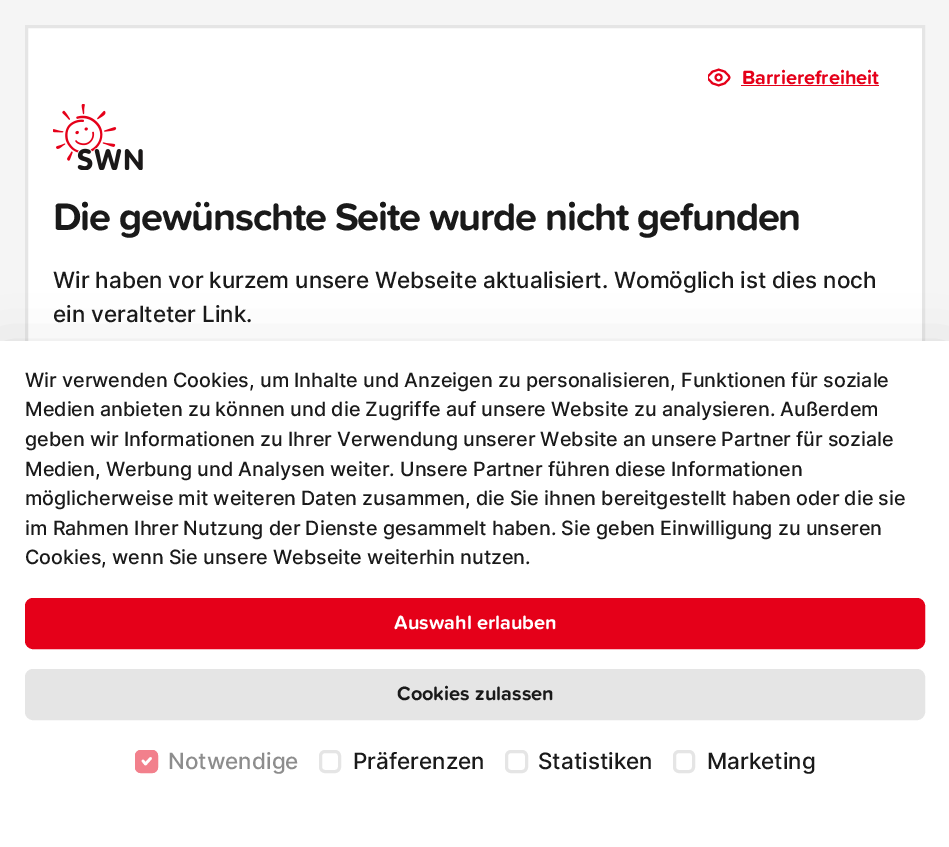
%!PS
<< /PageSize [949 847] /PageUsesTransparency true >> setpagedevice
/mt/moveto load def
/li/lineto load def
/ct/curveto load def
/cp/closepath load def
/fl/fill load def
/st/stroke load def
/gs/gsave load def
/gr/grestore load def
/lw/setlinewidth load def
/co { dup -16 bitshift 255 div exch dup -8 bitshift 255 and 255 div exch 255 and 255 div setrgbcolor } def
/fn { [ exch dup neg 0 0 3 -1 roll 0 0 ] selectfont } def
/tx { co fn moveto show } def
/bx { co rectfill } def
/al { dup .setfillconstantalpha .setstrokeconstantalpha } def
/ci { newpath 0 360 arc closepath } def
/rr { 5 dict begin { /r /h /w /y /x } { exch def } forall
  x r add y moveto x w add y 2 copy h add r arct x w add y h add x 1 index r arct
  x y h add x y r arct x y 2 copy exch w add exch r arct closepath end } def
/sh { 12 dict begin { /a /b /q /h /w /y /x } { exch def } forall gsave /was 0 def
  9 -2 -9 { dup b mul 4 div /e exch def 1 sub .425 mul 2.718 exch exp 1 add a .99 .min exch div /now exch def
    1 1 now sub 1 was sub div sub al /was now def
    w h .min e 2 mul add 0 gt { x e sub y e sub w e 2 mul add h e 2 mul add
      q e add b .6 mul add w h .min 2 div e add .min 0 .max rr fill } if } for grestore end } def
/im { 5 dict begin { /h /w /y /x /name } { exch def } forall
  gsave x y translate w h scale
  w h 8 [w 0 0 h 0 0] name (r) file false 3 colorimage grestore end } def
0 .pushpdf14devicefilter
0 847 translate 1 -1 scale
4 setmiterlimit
0 0 949 847 16#F5F5F5 bx
28 28 894 313 16#FFFFFF bx
16#E5E5E5 co
3 lw
26.5 26.5 897 452 rectstroke
gs
708 66 23 24 rectclip
16#E50019 co
2 lw
1 setlinecap
1 setlinejoin
707.5 77.5 mt 713 67 724.5 67 729.5 77.5 ct 724.5 88 713 88 707.5 77.5 ct cp st
gr
16#E50019 co
2 lw
718.6 77.4 3 ci st
741 85 138 1 16#E50019 bx
(media/1.raw) 53 104 90 66 im
16#000000 co
0 361 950 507 0 30 .18 sh
0 341 949 506 16#FFFFFF bx
16#E50019 co
26.5 599.5 897 48 6.5 rr gs fl gr
3 lw
st
16#E5E5E5 co
26.5 670.5 897 48 6.5 rr gs fl gr
st
16#F2808C co
135 750 23 23 6 rr fl
16#FFFFFF co
2.6 lw
1 setlinecap
1 setlinejoin
143 761 mt 145.5 764 li 150.5 758.5 li st
16#F2808C co
3 lw
0 setlinecap
0 setlinejoin
136.5 751.5 20 20 4.5 rr st
16#E5E5E5 co
320.5 751.5 19 20 4.5 rr st
506.5 751.5 20 20 4.5 rr st
674.5 751.5 19 20 4.5 rr st
(Barrierefreiheit) 742 84 /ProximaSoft-Bold 20 16#E50019 tx
/ProximaSoft-Bold 39.75 fn
16#1A1A1A co
53 230 mt -1.2 0 (Die gewünschte Seite wurde nicht gefunden) ashow
(Wir haben vor kurzem unsere Webseite aktualisiert. Womöglich ist dies noch) 53 288 /Inter-Medium 22.5 16#1A1A1A tx
(ein veralteter Link.) 53 322 /Inter-Medium 22.5 16#1A1A1A tx
(Wir verwenden Cookies, um Inhalte und Anzeigen zu personalisieren, Funktionen für soziale) 25 387 /Inter-Medium 19.7 16#1A1A1A tx
(Medien anbieten zu können und die Zugriffe auf unsere Website zu analysieren. Außerdem) 25 416 /Inter-Medium 19.7 16#1A1A1A tx
(geben wir Informationen zu Ihrer Verwendung unserer Website an unsere Partner für soziale) 25 446 /Inter-Medium 19.7 16#1A1A1A tx
(Medien, Werbung und Analysen weiter. Unsere Partner führen diese Informationen) 25 476 /Inter-Medium 19.7 16#1A1A1A tx
(möglicherweise mit weiteren Daten zusammen, die Sie ihnen bereitgestellt haben oder die sie) 25 505 /Inter-Medium 19.7 16#1A1A1A tx
(im Rahmen Ihrer Nutzung der Dienste gesammelt haben. Sie geben Einwilligung zu unseren) 25 535 /Inter-Medium 19.7 16#1A1A1A tx
(Cookies, wenn Sie unsere Webseite weiterhin nutzen.) 25 564 /Inter-Medium 19.7 16#1A1A1A tx
(Auswahl erlauben) 394 629 /ProximaSoft-Bold 20 16#FFFFFF tx
(Cookies zulassen) 397 700 /ProximaSoft-Bold 20 16#1A1A1A tx
(Notwendige) 168 769 /Inter-Medium 22.5 16#8D8D8D tx
(Präferenzen) 353 769 /Inter-Medium 22.5 16#1A1A1A tx
(Statistiken) 538 769 /Inter-Medium 22.5 16#1A1A1A tx
(Marketing) 707 769 /Inter-Medium 22.5 16#1A1A1A tx
.poppdf14devicefilter showpage
